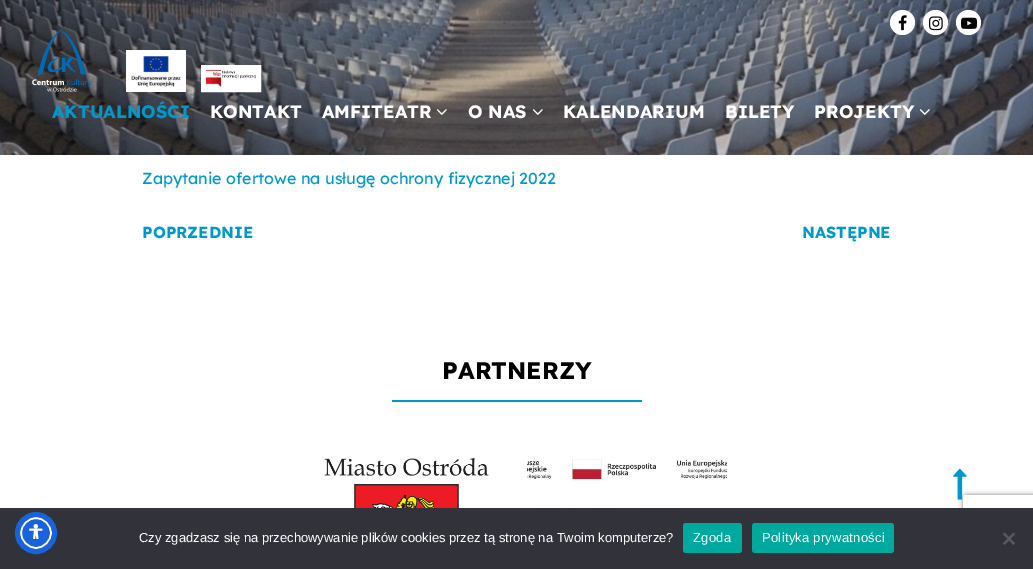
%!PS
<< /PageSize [1033 569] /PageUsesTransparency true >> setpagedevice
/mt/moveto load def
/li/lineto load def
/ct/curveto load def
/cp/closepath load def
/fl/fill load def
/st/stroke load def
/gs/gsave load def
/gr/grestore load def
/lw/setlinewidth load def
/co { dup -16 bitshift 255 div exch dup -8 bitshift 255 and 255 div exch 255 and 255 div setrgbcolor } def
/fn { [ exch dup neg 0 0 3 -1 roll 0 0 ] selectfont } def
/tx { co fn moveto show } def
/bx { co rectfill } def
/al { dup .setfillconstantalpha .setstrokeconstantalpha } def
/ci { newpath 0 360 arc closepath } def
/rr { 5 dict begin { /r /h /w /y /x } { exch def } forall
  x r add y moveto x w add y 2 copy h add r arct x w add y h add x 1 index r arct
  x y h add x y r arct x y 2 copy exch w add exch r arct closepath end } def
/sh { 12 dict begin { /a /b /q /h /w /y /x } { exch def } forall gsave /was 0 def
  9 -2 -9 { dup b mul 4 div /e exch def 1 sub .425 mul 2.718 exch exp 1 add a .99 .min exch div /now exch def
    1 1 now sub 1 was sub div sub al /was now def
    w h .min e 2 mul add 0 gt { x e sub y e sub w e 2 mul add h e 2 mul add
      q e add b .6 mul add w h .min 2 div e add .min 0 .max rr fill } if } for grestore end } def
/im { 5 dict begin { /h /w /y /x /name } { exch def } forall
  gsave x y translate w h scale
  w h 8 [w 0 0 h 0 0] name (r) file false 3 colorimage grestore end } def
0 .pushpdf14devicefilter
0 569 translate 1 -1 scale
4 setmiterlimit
0 0 1033 569 16#FFFFFF bx
(media/4.raw) 0 0 1033 155 im
902.5 22.5 12.5 ci fl
(media/1.raw) 898 15 9 16 im
935.5 22.5 12.5 ci fl
(media/2.raw) 929 16 14 15 im
968.5 22.5 12.5 ci fl
(media/3.raw) 961 17 16 12 im
(media/5.raw) 32 30 60 62 im
(media/6.raw) 126 50 60 42 im
5 lw
203.5 67.5 55 22 rectstroke
(media/7.raw) 206 70 50 17 im
(media/8.raw) 436 109 11 6 im
(media/9.raw) 532 109 11 6 im
(media/10.raw) 919 109 11 6 im
392 400 250 2 16#0099CC bx
(media/11.raw) 324 458 165 50 im
(media/12.raw) 527 459 200 49 im
gs
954 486 mt 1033 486 li 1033 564 li 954 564 li cp 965 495 mt 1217 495 li 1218 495 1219 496 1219 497 ct 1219 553 li 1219 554 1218 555 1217 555 ct 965 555 li 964 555 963 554 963 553 ct 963 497 li 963 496 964 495 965 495 ct cp eoclip newpath
16#808080 co
963 495 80 60 2 2.5 1 sh
gr
(media/13.raw) 953 468 14 32 im
0 508 1033 61 16#32323A bx
16#5D6494 co
20 519 32 32 16 2 .2 sh
16#1863DC co
36 533 15 ci gs fl gr
16#FFFFFF co
2 lw
st
16#1863DC co
5 lw
36 533 18.5 ci st
(media/14.raw) 29 524 14 15 im
16#00A99D co
683 523 59 30 3 rr fl
752 523 142 30 3 rr fl
16#59595D co
1013.5 532.5 mt 1015 534 li 1004.5 545 li 1003 543.5 li cp fl
1003 534 mt 1004.5 532.5 li 1015 543.5 li 1013.5 545 li cp fl
(AKTUALNOŚCI) 52 118 /Lexend-Bold 18 16#0099CC tx
(KONTAKT) 210 118 /Lexend-Bold 18 16#FFFFFF tx
(AMFITEATR) 322 118 /Lexend-Bold 18 16#FFFFFF tx
(O NAS) 468 118 /Lexend-Bold 18 16#FFFFFF tx
(KALENDARIUM) 563 118 /Lexend-Bold 18 16#FFFFFF tx
(BILETY) 725 118 /Lexend-Bold 18 16#FFFFFF tx
(PROJEKTY) 814 118 /Lexend-Bold 18 16#FFFFFF tx
(Zapytanie ofertowe na usługę ochrony fizycznej 2022) 142 184 /Lexend-Regular 16 16#0099CC tx
(POPRZEDNIE) 142 238 /Lexend-Bold 16 16#0099CC tx
(NASTĘPNE) 802 238 /Lexend-Bold 16 16#0099CC tx
(PARTNERZY) 442 379 /Lexend-Bold 24 16#000000 tx
(Czy zgadzasz się na przechowywanie plików cookies przez tą stronę na Twoim komputerze?) 139 542 /LiberationSans-Regular 13 16#FFFFFF tx
693 542 mt .25 0 (Zgoda) ashow
762 542 mt .25 0 (Polityka prywatności) ashow
.poppdf14devicefilter showpage
